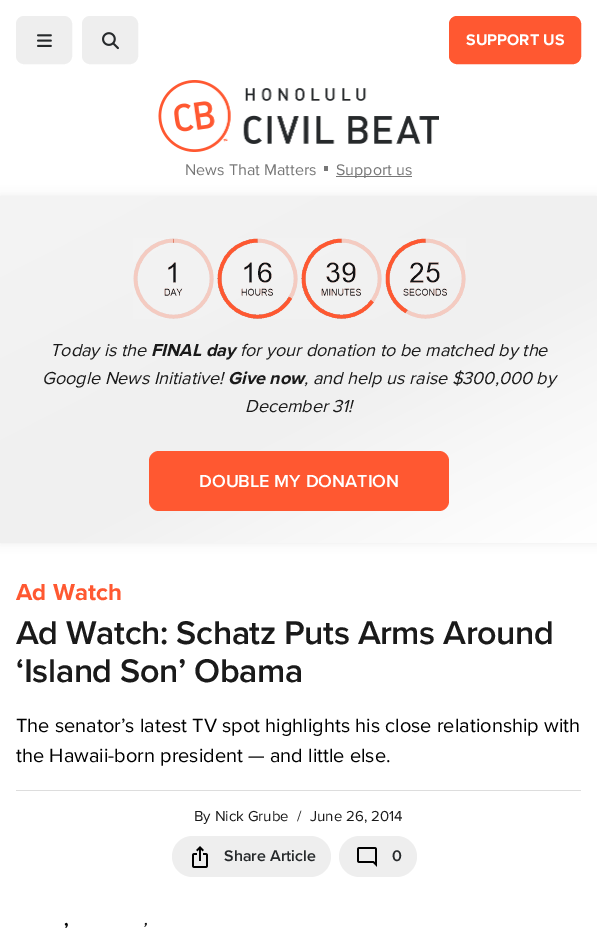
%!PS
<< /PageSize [597 929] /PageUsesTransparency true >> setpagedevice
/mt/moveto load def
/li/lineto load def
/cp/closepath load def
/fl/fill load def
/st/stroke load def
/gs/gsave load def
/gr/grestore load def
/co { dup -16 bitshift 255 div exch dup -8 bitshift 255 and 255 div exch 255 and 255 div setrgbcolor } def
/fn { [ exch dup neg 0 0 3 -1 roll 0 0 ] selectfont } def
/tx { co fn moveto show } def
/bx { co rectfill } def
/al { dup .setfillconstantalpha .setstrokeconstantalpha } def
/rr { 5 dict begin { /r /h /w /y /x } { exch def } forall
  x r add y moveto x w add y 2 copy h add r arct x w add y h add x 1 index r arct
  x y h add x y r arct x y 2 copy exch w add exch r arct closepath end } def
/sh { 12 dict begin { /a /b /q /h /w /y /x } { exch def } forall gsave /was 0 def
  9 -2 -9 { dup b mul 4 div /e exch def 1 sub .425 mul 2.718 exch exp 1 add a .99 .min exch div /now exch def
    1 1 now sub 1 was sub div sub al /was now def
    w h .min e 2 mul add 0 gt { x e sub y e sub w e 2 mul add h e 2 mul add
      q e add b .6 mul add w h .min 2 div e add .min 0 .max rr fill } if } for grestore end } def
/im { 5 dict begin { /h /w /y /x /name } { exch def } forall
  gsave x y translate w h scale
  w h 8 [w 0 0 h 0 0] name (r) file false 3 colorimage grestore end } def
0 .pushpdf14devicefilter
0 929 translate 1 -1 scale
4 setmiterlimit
0 0 597 929 16#FFFFFF bx
16#EEEEEE co
16.5 16.5 55 47 7.5 rr gs fl gr
st
(media/1.raw) 37 34 15 13 im
82.5 16.5 55 47 7.5 rr gs fl gr
st
(media/2.raw) 102 32 17 18 im
16#FF5831 co
449.5 16.5 131 47 7.5 rr gs fl gr
st
(media/3.raw) 158 80 281 72 im
324 166 4 5 16#777777 bx
336 176 76 1 16#777777 bx
16#000000 co
0 196 597 347 0 5 .07 sh
gs 0 196 mt 597 196 li 597 543 li 0 543 li cp clip newpath
<< /ShadingType 2 /ColorSpace /DeviceRGB /Coords [167 111 430 628] /Extend [true true] /Function << /FunctionType 3 /Domain [0 1] /Functions [<< /FunctionType 2 /Domain [0 1] /C0 [.957 .957 .957] /C1 [.941 .941 .941] /N 1 >> << /FunctionType 2 /Domain [0 1] /C0 [.941 .941 .941] /C1 [1 1 1] /N 1 >>] /Bounds [.55] /Encode [0 1 0 1] >> >> shfill gr
(media/4.raw) 133 238 333 81 im
16#FF5831 co
149 451 300 60 10 rr fl
16 790 565 1 16#DDDDDD bx
16#EEEEEE co
172 836 159 41 20.5 rr fl
(media/5.raw) 192 846 16 22 im
339 836 78 41 20.5 rr fl
(media/6.raw) 357 847 20 20 im
(SUPPORT US) 466 45 /ProximaNova-Bold 16 16#FFFFFF tx
(News That Matters) 185 175 /ProximaNova-Regular 16 16#777777 tx
(Support us) 336 175 /ProximaNova-Regular 16 16#777777 tx
(Today is the) 50 356 /ProximaNova-Italic 18 16#1A1A1A tx
(FINAL day) 151 356 /ProximaNova-BoldItalic 18 16#1A1A1A tx
(for your donation to be matched by the) 240 356 /ProximaNova-Italic 18 16#1A1A1A tx
(Google News Initiative!) 42 384 /ProximaNova-Italic 18 16#1A1A1A tx
(Give now) 228 384 /ProximaNova-BoldItalic 18 16#1A1A1A tx
(, and help us raise $300,000 by) 304 384 /ProximaNova-Italic 18 16#1A1A1A tx
(December 31!) 245 412 /ProximaNova-Italic 18 16#1A1A1A tx
(DOUBLE MY DONATION) 199 487 /ProximaNova-SemiBold 18 16#FFFFFF tx
(Ad Watch) 16 600 /ProximaNova-Bold 24 16#FF5831 tx
/ProximaNova-SemiBold 34 fn
16#1A1A1A co
16 644 mt -.4 0 (Ad Watch: Schatz Puts Arms Around) ashow
16 682 mt -.4 0 (‘Island Son’ Obama) ashow
(The senator’s latest TV spot highlights his close relationship with) 16 732 /ProximaNova-Regular 20 16#000000 tx
(the Hawaii-born president — and little else.) 16 762 /ProximaNova-Regular 20 16#000000 tx
(By Nick Grube) 194 821 /ProximaNova-Regular 15 16#1A1A1A tx
(/) 297 821 /ProximaNova-Regular 15 16#1A1A1A tx
(June 26, 2014) 310 821 /ProximaNova-Regular 15 16#1A1A1A tx
(Share Article) 224 861 /ProximaNova-SemiBold 16 16#26292B tx
(0) 392 861 /ProximaNova-SemiBold 16 16#26292B tx
(’) 64 935 /ProximaNova-Bold 18 16#000000 tx
(’) 141 935 /ProximaNova-Italic 18 16#000000 tx
.poppdf14devicefilter showpage
